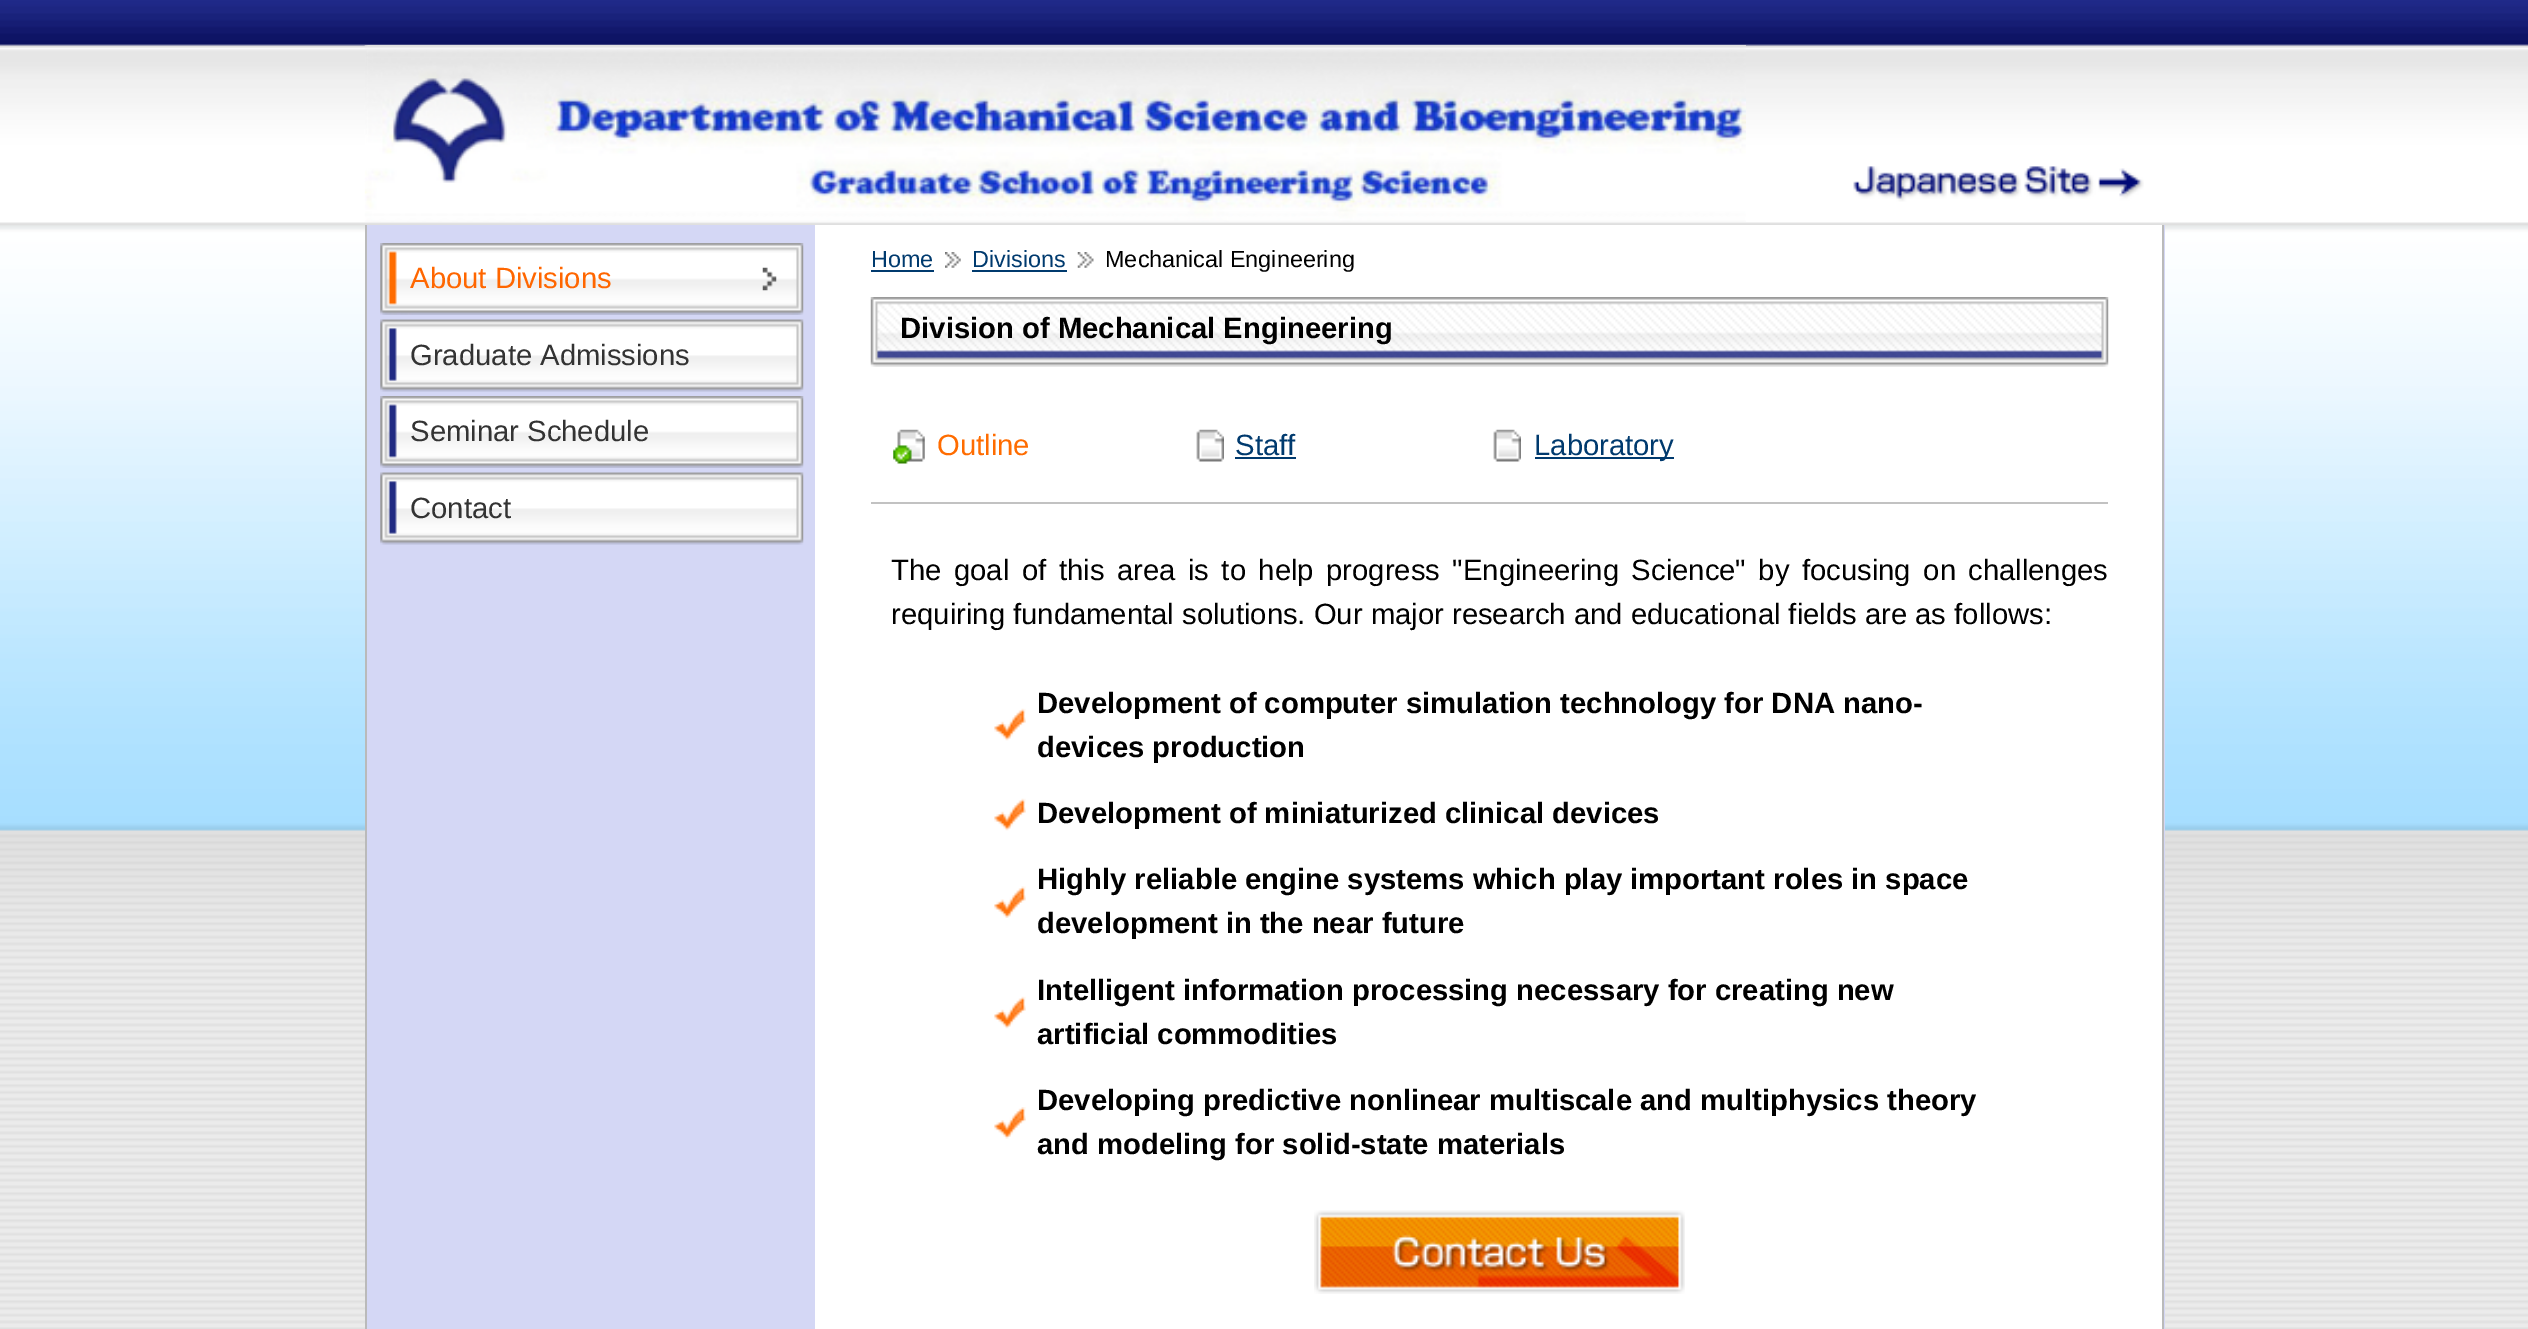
%!PS
<< /PageSize [2528 1329] >> setpagedevice
/mt/moveto load def
/co { dup -16 bitshift 255 div exch dup -8 bitshift 255 and 255 div exch 255 and 255 div setrgbcolor } def
/fn { [ exch dup neg 0 0 3 -1 roll 0 0 ] selectfont } def
/tx { co fn moveto show } def
/bx { co rectfill } def
/im { 5 dict begin { /h /w /y /x /name } { exch def } forall
  gsave x y translate w h scale
  w h 8 [w 0 0 h 0 0] name (r) file false 3 colorimage grestore end } def
0 1329 translate 1 -1 scale
4 setmiterlimit
0 0 2528 1329 16#FFFFFF bx
(media/1.raw) 0 0 2528 1329 im
(media/2.raw) 364 45 1382 177 im
(media/3.raw) 1853 166 291 36 im
367 225 1798 1104 16#D4D7F5 bx
2162 225 2 1104 16#BABABA bx
365 225 2 1104 16#BABABA bx
(media/4.raw) 380 243 424 72 im
(media/5.raw) 762 267 15 24 im
(media/6.raw) 380 319 424 73 im
(media/7.raw) 380 396 424 72 im
(media/6.raw) 380 472 424 73 im
815 225 1347 1104 16#FFFFFF bx
871 270 63 2 16#003A6E bx
(media/8.raw) 945 252 16 16 im
972 270 95 2 16#003A6E bx
(media/9.raw) 1077 252 17 16 im
(media/10.raw) 870 297 1239 70 im
871 502 1237 2 16#C2C2C2 bx
(media/11.raw) 893 429 32 35 im
(media/12.raw) 1196 429 28 33 im
1235 457 61 2 16#003A6E bx
(media/13.raw) 1493 429 28 33 im
1535 457 139 2 16#003A6E bx
(media/14.raw) 994 708 32 33 im
(media/14.raw) 994 798 32 33 im
(media/15.raw) 994 886 32 32 im
(media/14.raw) 994 996 32 33 im
(media/16.raw) 994 1107 32 32 im
(media/17.raw) 1314 1210 371 84 im
(About Divisions) 410 288 /LiberationSans-Regular 29.25 16#FF6600 tx
(Graduate Admissions) 410 365 /LiberationSans-Regular 29.25 16#333333 tx
(Seminar Schedule) 410 441 /LiberationSans-Regular 29.25 16#333333 tx
(Contact) 410 518 /LiberationSans-Regular 29.25 16#333333 tx
(Home) 871 267 /LiberationSans-Regular 23.4 16#003A6E tx
(Divisions) 972 267 /LiberationSans-Regular 23.4 16#003A6E tx
(Mechanical Engineering) 1105 267 /LiberationSans-Regular 23.4 16#000000 tx
(Division of Mechanical Engineering) 900 338 /LiberationSans-Bold 29.25 16#000000 tx
(Outline) 937 455 /LiberationSans-Regular 29.25 16#FF6C00 tx
(Staff) 1235 455 /LiberationSans-Regular 29.25 16#003A6E tx
(Laboratory) 1534 455 /LiberationSans-Regular 29.25 16#003A6E tx
16#000000 co
891 580 mt 4.4 0 32 (The goal of this area is to help progress "Engineering Science" by focusing on) widthshow
(challenges) 1968 580 /LiberationSans-Regular 29.25 16#000000 tx
(requiring fundamental solutions. Our major research and educational fields are as follows:) 891 624 /LiberationSans-Regular 29.25 16#000000 tx
(Development of computer simulation technology for DNA nano-) 1037 713 /LiberationSans-Bold 29.25 16#000000 tx
(devices production) 1037 757 /LiberationSans-Bold 29.25 16#000000 tx
(Development of miniaturized clinical devices) 1037 823 /LiberationSans-Bold 29.25 16#000000 tx
(Highly reliable engine systems which play important roles in space) 1037 889 /LiberationSans-Bold 29.25 16#000000 tx
(development in the near future) 1037 933 /LiberationSans-Bold 29.25 16#000000 tx
(Intelligent information processing necessary for creating new) 1037 1000 /LiberationSans-Bold 29.25 16#000000 tx
(artificial commodities) 1037 1044 /LiberationSans-Bold 29.25 16#000000 tx
(Developing predictive nonlinear multiscale and multiphysics theory) 1037 1110 /LiberationSans-Bold 29.25 16#000000 tx
(and modeling for solid-state materials) 1037 1154 /LiberationSans-Bold 29.25 16#000000 tx
showpage
